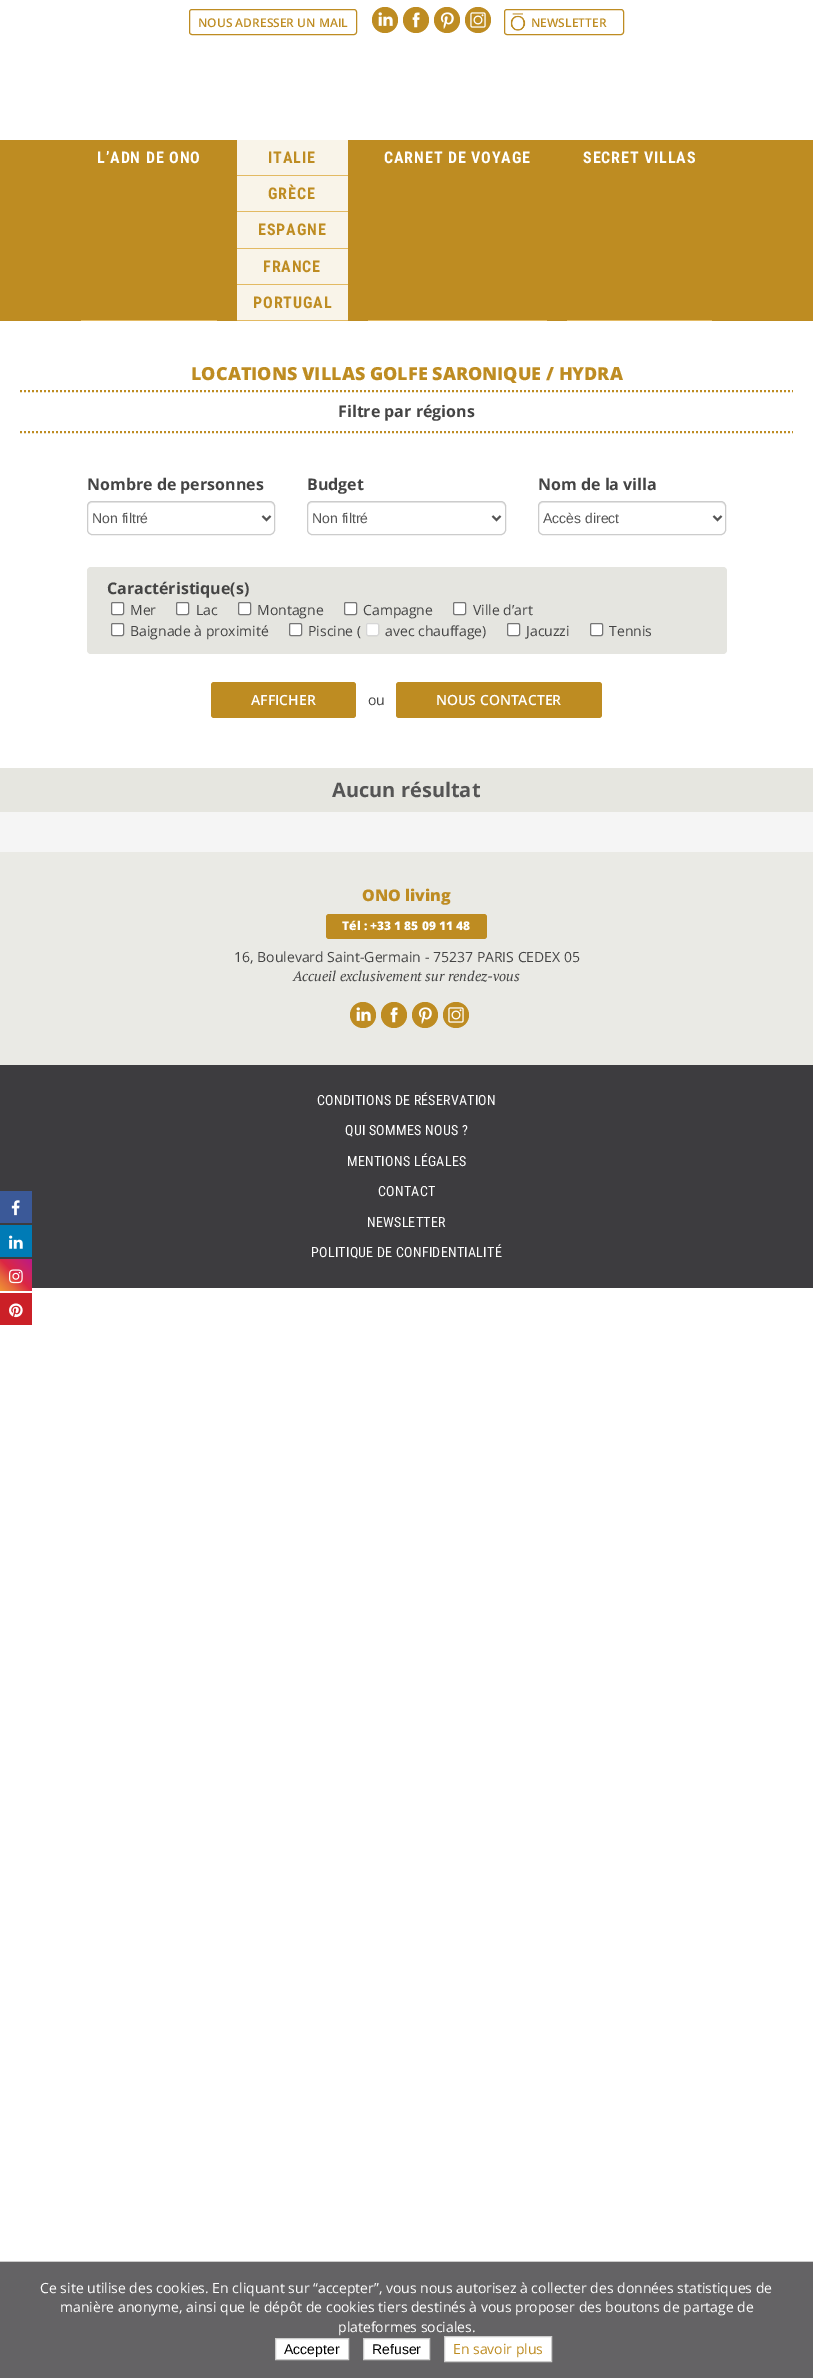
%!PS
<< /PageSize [813 2378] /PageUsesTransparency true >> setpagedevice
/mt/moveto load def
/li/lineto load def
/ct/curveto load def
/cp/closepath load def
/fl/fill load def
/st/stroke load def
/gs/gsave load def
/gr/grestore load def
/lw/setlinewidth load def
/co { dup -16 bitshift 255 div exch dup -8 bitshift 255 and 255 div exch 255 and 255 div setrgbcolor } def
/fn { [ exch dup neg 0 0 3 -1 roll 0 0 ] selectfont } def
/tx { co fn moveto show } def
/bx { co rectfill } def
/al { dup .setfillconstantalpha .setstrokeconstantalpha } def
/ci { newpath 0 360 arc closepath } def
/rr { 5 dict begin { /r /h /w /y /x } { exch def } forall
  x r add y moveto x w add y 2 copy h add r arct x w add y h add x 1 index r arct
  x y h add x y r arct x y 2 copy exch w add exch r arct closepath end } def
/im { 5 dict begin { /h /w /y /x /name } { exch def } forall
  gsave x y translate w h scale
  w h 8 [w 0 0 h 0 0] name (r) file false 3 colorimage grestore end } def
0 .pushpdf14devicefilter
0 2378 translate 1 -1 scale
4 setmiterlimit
0 0 813 2378 16#FFFFFF bx
16#BE8C22 co
189.5 9.5 167 25 2.5 rr st
385 20 13 ci fl
(media/1.raw) 378 12 15 14 im
416 20 13 ci fl
(media/2.raw) 412 12 8 16 im
447 20 13 ci fl
(media/3.raw) 440 12 14 17 im
478 20 13 ci fl
(media/4.raw) 470 12 16 16 im
(media/5.raw) 510 13 16 18 im
504.5 9.5 119 25 2.5 rr st
0 140 813 181 16#BE8C22 bx
81 320 136 1 16#E3BA63 bx
237 320 111 1 16#E3BA63 bx
237 140 111 180 16#F9F4E9 bx
237 175 111 1 16#E3BA63 bx
237 211 111 1 16#E3BA63 bx
237 248 111 1 16#E3BA63 bx
237 284 111 1 16#E3BA63 bx
368 320 179 1 16#E3BA63 bx
567 320 145 1 16#E3BA63 bx
16#BE8C22 co
2 lw
[2 2] 0 setdash
20 432 mt 793 432 li st
20 391 mt 793 391 li st
16#ECECEC co
92 503 mt 270 503 li 272 503 274 505 274 507 ct 274 504 273 502 270 502 ct 91 502 li 89 503 88 505 88 507 ct 88 505 90 503 92 503 ct cp fl
16#CCCCCC co
1 lw
[] 0 setdash
87.5 501.5 187 33 4.5 rr st
16#555555 co
2 lw
262.5 516 mt 266.5 520 li 270.5 516 li st
16#ECECEC co
312 503 mt 501 503 li 503 503 505 505 505 507 ct 505 506 li 505 504 503 502 501 502 ct 312 502 li 310 502 308 504 308 506 ct 308 507 li 308 505 310 503 312 503 ct cp fl
16#CCCCCC co
1 lw
307.5 501.5 198 33 4.5 rr st
16#555555 co
2 lw
492.5 516 mt 496.5 520 li 500.5 516 li st
16#ECECEC co
543 503 mt 721 503 li 723 503 725 505 725 507 ct 725 504 724 502 721 502 ct 542 502 li 540 503 539 505 539 507 ct 539 505 541 503 543 503 ct cp fl
16#CCCCCC co
1 lw
538.5 501.5 187 33 4.5 rr st
16#555555 co
2 lw
713.5 516 mt 717.5 520 li 721.5 516 li st
16#E5E5E0 co
87 567 640 87 4 rr fl
16#FFFFFF co
111.5 602.5 12 12 1.5 rr gs fl gr
16#767676 co
1 lw
st
16#FFFFFF co
176.5 602.5 12 12 1.5 rr gs fl gr
16#767676 co
st
16#FFFFFF co
238.5 602.5 12 12 1.5 rr gs fl gr
16#767676 co
st
16#FFFFFF co
344.5 602.5 12 12 1.5 rr gs fl gr
16#767676 co
st
16#FFFFFF co
453.5 602.5 12 12 1.5 rr gs fl gr
16#767676 co
st
16#FFFFFF co
111.5 623.5 12 12 1.5 rr gs fl gr
16#767676 co
st
16#FFFFFF co
289.5 623.5 12 12 1.5 rr gs fl gr
16#767676 co
st
16#FFFFFF co
366 623 13 13 2 rr fl
0.3 al
16#767676 co
366.5 623.5 12 12 1.5 rr st
1 al
16#FFFFFF co
507.5 623.5 12 12 1.5 rr gs fl gr
16#767676 co
st
16#FFFFFF co
590.5 623.5 12 12 1.5 rr gs fl gr
16#767676 co
st
16#BE8C22 co
211 682 145 36 3 rr fl
396 682 206 36 3 rr fl
0 768 813 44 16#E6E6E0 bx
0 812 813 40 16#F5F5F5 bx
0 1065 813 223 16#3D3C3F bx
0 1191 32 32 16#3B5998 bx
(media/6.raw) 11 1200 9 16 im
0 1225 32 32 16#007BB6 bx
(media/7.raw) 9 1235 14 14 im
gs 0 1259 mt 32 1259 li 32 1291 li 0 1291 li cp clip newpath
<< /ShadingType 2 /ColorSpace /DeviceRGB /Coords [0 1291 32 1259] /Extend [true true] /Function << /FunctionType 3 /Domain [0 1] /Functions [<< /FunctionType 2 /Domain [0 1] /C0 [.941 .58 .2] /C1 [.902 .408 .235] /N 1 >> << /FunctionType 2 /Domain [0 1] /C0 [.902 .408 .235] /C1 [.863 .153 .263] /N 1 >> << /FunctionType 2 /Domain [0 1] /C0 [.863 .153 .263] /C1 [.8 .137 .4] /N 1 >> << /FunctionType 2 /Domain [0 1] /C0 [.8 .137 .4] /C1 [.737 .094 .533] /N 1 >>] /Bounds [.25 .5 .75] /Encode [0 1 0 1 0 1 0 1] >> >> shfill gr
(media/8.raw) 9 1269 14 15 im
0 1293 32 32 16#CB2027 bx
(media/9.raw) 9 1303 14 15 im
0 852 813 213 16#EAEAE5 bx
16#BE8C22 co
326 914 161 25 3 rr fl
363 1015 13 ci fl
(media/1.raw) 356 1007 15 14 im
394 1015 13 ci fl
(media/2.raw) 390 1007 8 16 im
425 1015 13 ci fl
(media/3.raw) 418 1007 14 17 im
456 1015 13 ci fl
(media/4.raw) 448 1007 16 16 im
0 2262 813 116 16#646365 bx
0 2261 813 1 16#CCCCCC bx
16#FFFFFF co
275.5 2338.5 mt 348.5 2338.5 li 348.5 2359.5 li 275.5 2359.5 li cp gs fl gr
16#CCCCCC co
st
16#FFFFFF co
363.5 2338.5 mt 429.5 2338.5 li 429.5 2359.5 li 363.5 2359.5 li cp gs fl gr
16#CCCCCC co
st
16#FFFFFF co
444.5 2336.5 mt 551.5 2336.5 li 551.5 2361.5 li 444.5 2361.5 li cp gs fl gr
16#CCCCCC co
st
(NOUS ADRESSER UN MAIL) 198 27 /OpenSans-SemiBold 12 16#BE8C22 tx
(NEWSLETTER) 531 27 /OpenSans-SemiBold 12 16#BE8C22 tx
/RobotoCondensed-Bold 16 fn
16#FFFFFF co
97 163 mt .9 0 (L’ADN DE ONO) ashow
16#BE8C22 co
268 163 mt .9 0 (ITALIE) ashow
268 199 mt .9 0 (GRÈCE) ashow
258 235 mt .9 0 (ESPAGNE) ashow
263 272 mt .9 0 (FRANCE) ashow
253 308 mt .9 0 (PORTUGAL) ashow
16#FFFFFF co
384 163 mt .9 0 (CARNET DE VOYAGE) ashow
583 163 mt .9 0 (SECRET VILLAS) ashow
(LOCATIONS VILLAS GOLFE SARONIQUE / HYDRA) 191 380 /OpenSans-ExtraBold 18 16#BE8C22 tx
(Filtre par régions) 338 417 /OpenSans-Bold 16 16#444444 tx
(Nombre de personnes) 87 490 /OpenSans-Bold 16 16#444444 tx
(Non filtré) 92 523 /LiberationSans-Regular 14 16#555555 tx
(Budget) 307 490 /OpenSans-Bold 16 16#444444 tx
(Non filtré) 312 523 /LiberationSans-Regular 14 16#555555 tx
(Nom de la villa) 538 490 /OpenSans-Bold 16 16#444444 tx
(Accès direct) 543 523 /LiberationSans-Regular 14 16#555555 tx
(Caractéristique\(s\)) 107 594 /OpenSans-Bold 16 16#444444 tx
(Mer) 130 615 /OpenSans-Regular 14 16#444444 tx
(Lac) 196 615 /OpenSans-Regular 14 16#444444 tx
(Montagne) 257 615 /OpenSans-Regular 14 16#444444 tx
(Campagne) 363 615 /OpenSans-Regular 14 16#444444 tx
(Ville d’art) 473 615 /OpenSans-Regular 14 16#444444 tx
(Baignade à proximité) 130 636 /OpenSans-Regular 14 16#444444 tx
(Piscine \() 308 636 /OpenSans-Regular 14 16#444444 tx
(avec chauffage\)) 385 636 /OpenSans-Regular 14 16#444444 tx
(Jacuzzi) 526 636 /OpenSans-Regular 14 16#444444 tx
(Tennis) 609 636 /OpenSans-Regular 14 16#444444 tx
(AFFICHER) 251 705 /OpenSans-SemiBold 14 16#FFFFFF tx
(ou) 368 705 /OpenSans-Regular 14 16#444444 tx
(NOUS CONTACTER) 436 705 /OpenSans-SemiBold 14 16#FFFFFF tx
(Aucun résultat) 332 797 /OpenSans-Bold 20 16#555555 tx
(ONO living) 362 901 /OpenSans-ExtraBold 16 16#BE8C22 tx
(Tél : +33 1 85 09 11 48) 342 930 /OpenSans-ExtraBold 12 16#FFFFFF tx
(16, Boulevard Saint-Germain - 75237 PARIS CEDEX 05) 234 962 /OpenSans-Regular 14 16#444444 tx
(Accueil exclusivement sur rendez-vous) 293 981 /PTSerif-Italic 14 16#444444 tx
/RobotoCondensed-Regular 14 fn
16#FFFFFF co
317 1105 mt .25 0 (CONDITIONS DE RÉSERVATION) ashow
345 1135 mt .25 0 (QUI SOMMES NOUS ?) ashow
347 1166 mt .25 0 (MENTIONS LÉGALES) ashow
378 1196 mt .25 0 (CONTACT) ashow
367 1227 mt .25 0 (NEWSLETTER) ashow
311 1257 mt .25 0 (POLITIQUE DE CONFIDENTIALITÉ) ashow
(Ce site utilise des cookies. En cliquant sur “accepter”, vous nous autorisez à collecter des données statistiques de) 40 2293 /OpenSans-Regular 14 16#FFFFFF tx
(manière anonyme, ainsi que le dépôt de cookies tiers destinés à vous proposer des boutons de partage de) 60 2312 /OpenSans-Regular 14 16#FFFFFF tx
(plateformes sociales.) 338 2332 /OpenSans-Regular 14 16#FFFFFF tx
(Accepter) 284 2354 /LiberationSans-Regular 14 16#000000 tx
(Refuser) 372 2354 /LiberationSans-Regular 14 16#000000 tx
(En savoir plus) 453 2354 /OpenSans-Regular 14 16#BE8C22 tx
.poppdf14devicefilter showpage
